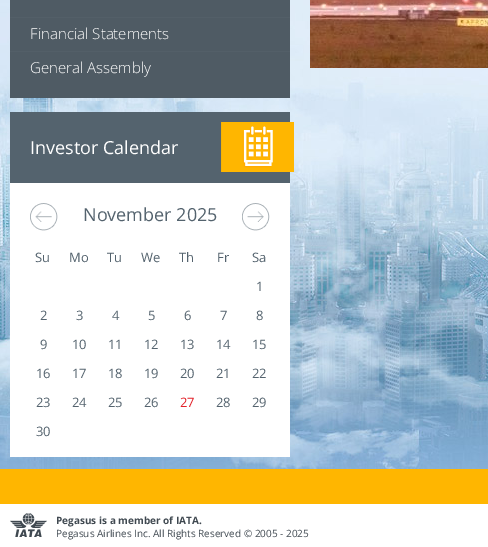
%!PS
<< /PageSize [488 547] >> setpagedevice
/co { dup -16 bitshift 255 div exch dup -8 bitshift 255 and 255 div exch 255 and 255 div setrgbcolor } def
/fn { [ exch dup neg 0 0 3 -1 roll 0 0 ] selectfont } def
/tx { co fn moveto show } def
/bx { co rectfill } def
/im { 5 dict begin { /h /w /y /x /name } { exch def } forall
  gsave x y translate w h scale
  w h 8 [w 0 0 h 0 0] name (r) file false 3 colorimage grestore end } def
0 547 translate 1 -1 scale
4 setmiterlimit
0 0 488 547 16#FFFFFF bx
(media/1.raw) 0 0 488 469 im
10 0 280 98 16#4F5B64 bx
10 17 280 1 16#535F68 bx
10 51 280 1 16#535F68 bx
10 112 280 71 16#54636E bx
(media/2.raw) 221 122 73 50 im
10 183 280 274 16#FFFFFF bx
(media/3.raw) 30 203 28 28 im
(media/4.raw) 242 203 28 28 im
(media/5.raw) 310 0 178 68 im
0 469 488 35 16#FFB600 bx
(media/6.raw) 10 513 37 24 im
(Financial Statements) 30 39 /OpenSans-Light 15 16#FFFFFF tx
(General Assembly) 30 73 /OpenSans-Light 15 16#FFFFFF tx
(Investor Calendar) 30 154 /OpenSans-Regular 18 16#FFFFFF tx
(November 2025) 83 221 /OpenSans-Regular 18 16#54636E tx
(Su) 35 262 /OpenSans-Regular 13 16#54636E tx
(Mo) 69 262 /OpenSans-Regular 13 16#54636E tx
(Tu) 107 262 /OpenSans-Regular 13 16#54636E tx
(We) 141 262 /OpenSans-Regular 13 16#54636E tx
(Th) 179 262 /OpenSans-Regular 13 16#54636E tx
(Fr) 217 262 /OpenSans-Regular 13 16#54636E tx
(Sa) 252 262 /OpenSans-Regular 13 16#54636E tx
(1) 256 291 /OpenSans-Regular 13 16#54636E tx
(2) 40 320 /OpenSans-Regular 13 16#54636E tx
(3) 76 320 /OpenSans-Regular 13 16#54636E tx
(4) 112 320 /OpenSans-Regular 13 16#54636E tx
(5) 148 320 /OpenSans-Regular 13 16#54636E tx
(6) 184 320 /OpenSans-Regular 13 16#54636E tx
(7) 220 320 /OpenSans-Regular 13 16#54636E tx
(8) 256 320 /OpenSans-Regular 13 16#54636E tx
(9) 40 349 /OpenSans-Regular 13 16#54636E tx
(10) 72 349 /OpenSans-Regular 13 16#54636E tx
(11) 108 349 /OpenSans-Regular 13 16#54636E tx
(12) 144 349 /OpenSans-Regular 13 16#54636E tx
(13) 180 349 /OpenSans-Regular 13 16#54636E tx
(14) 216 349 /OpenSans-Regular 13 16#54636E tx
(15) 252 349 /OpenSans-Regular 13 16#54636E tx
(16) 36 378 /OpenSans-Regular 13 16#54636E tx
(17) 72 378 /OpenSans-Regular 13 16#54636E tx
(18) 108 378 /OpenSans-Regular 13 16#54636E tx
(19) 144 378 /OpenSans-Regular 13 16#54636E tx
(20) 180 378 /OpenSans-Regular 13 16#54636E tx
(21) 216 378 /OpenSans-Regular 13 16#54636E tx
(22) 252 378 /OpenSans-Regular 13 16#54636E tx
(23) 36 407 /OpenSans-Regular 13 16#54636E tx
(24) 72 407 /OpenSans-Regular 13 16#54636E tx
(25) 108 407 /OpenSans-Regular 13 16#54636E tx
(26) 144 407 /OpenSans-Regular 13 16#54636E tx
(27) 180 407 /OpenSans-Regular 13 16#E31F27 tx
(28) 216 407 /OpenSans-Regular 13 16#54636E tx
(29) 252 407 /OpenSans-Regular 13 16#54636E tx
(30) 36 436 /OpenSans-Regular 13 16#54636E tx
(Pegasus is a member of IATA.) 56 524 /OpenSans-Bold 10 16#404951 tx
(Pegasus Airlines Inc. All Rights Reserved © 2005 - 2025) 56 537 /OpenSans-Regular 10 16#404951 tx
showpage
